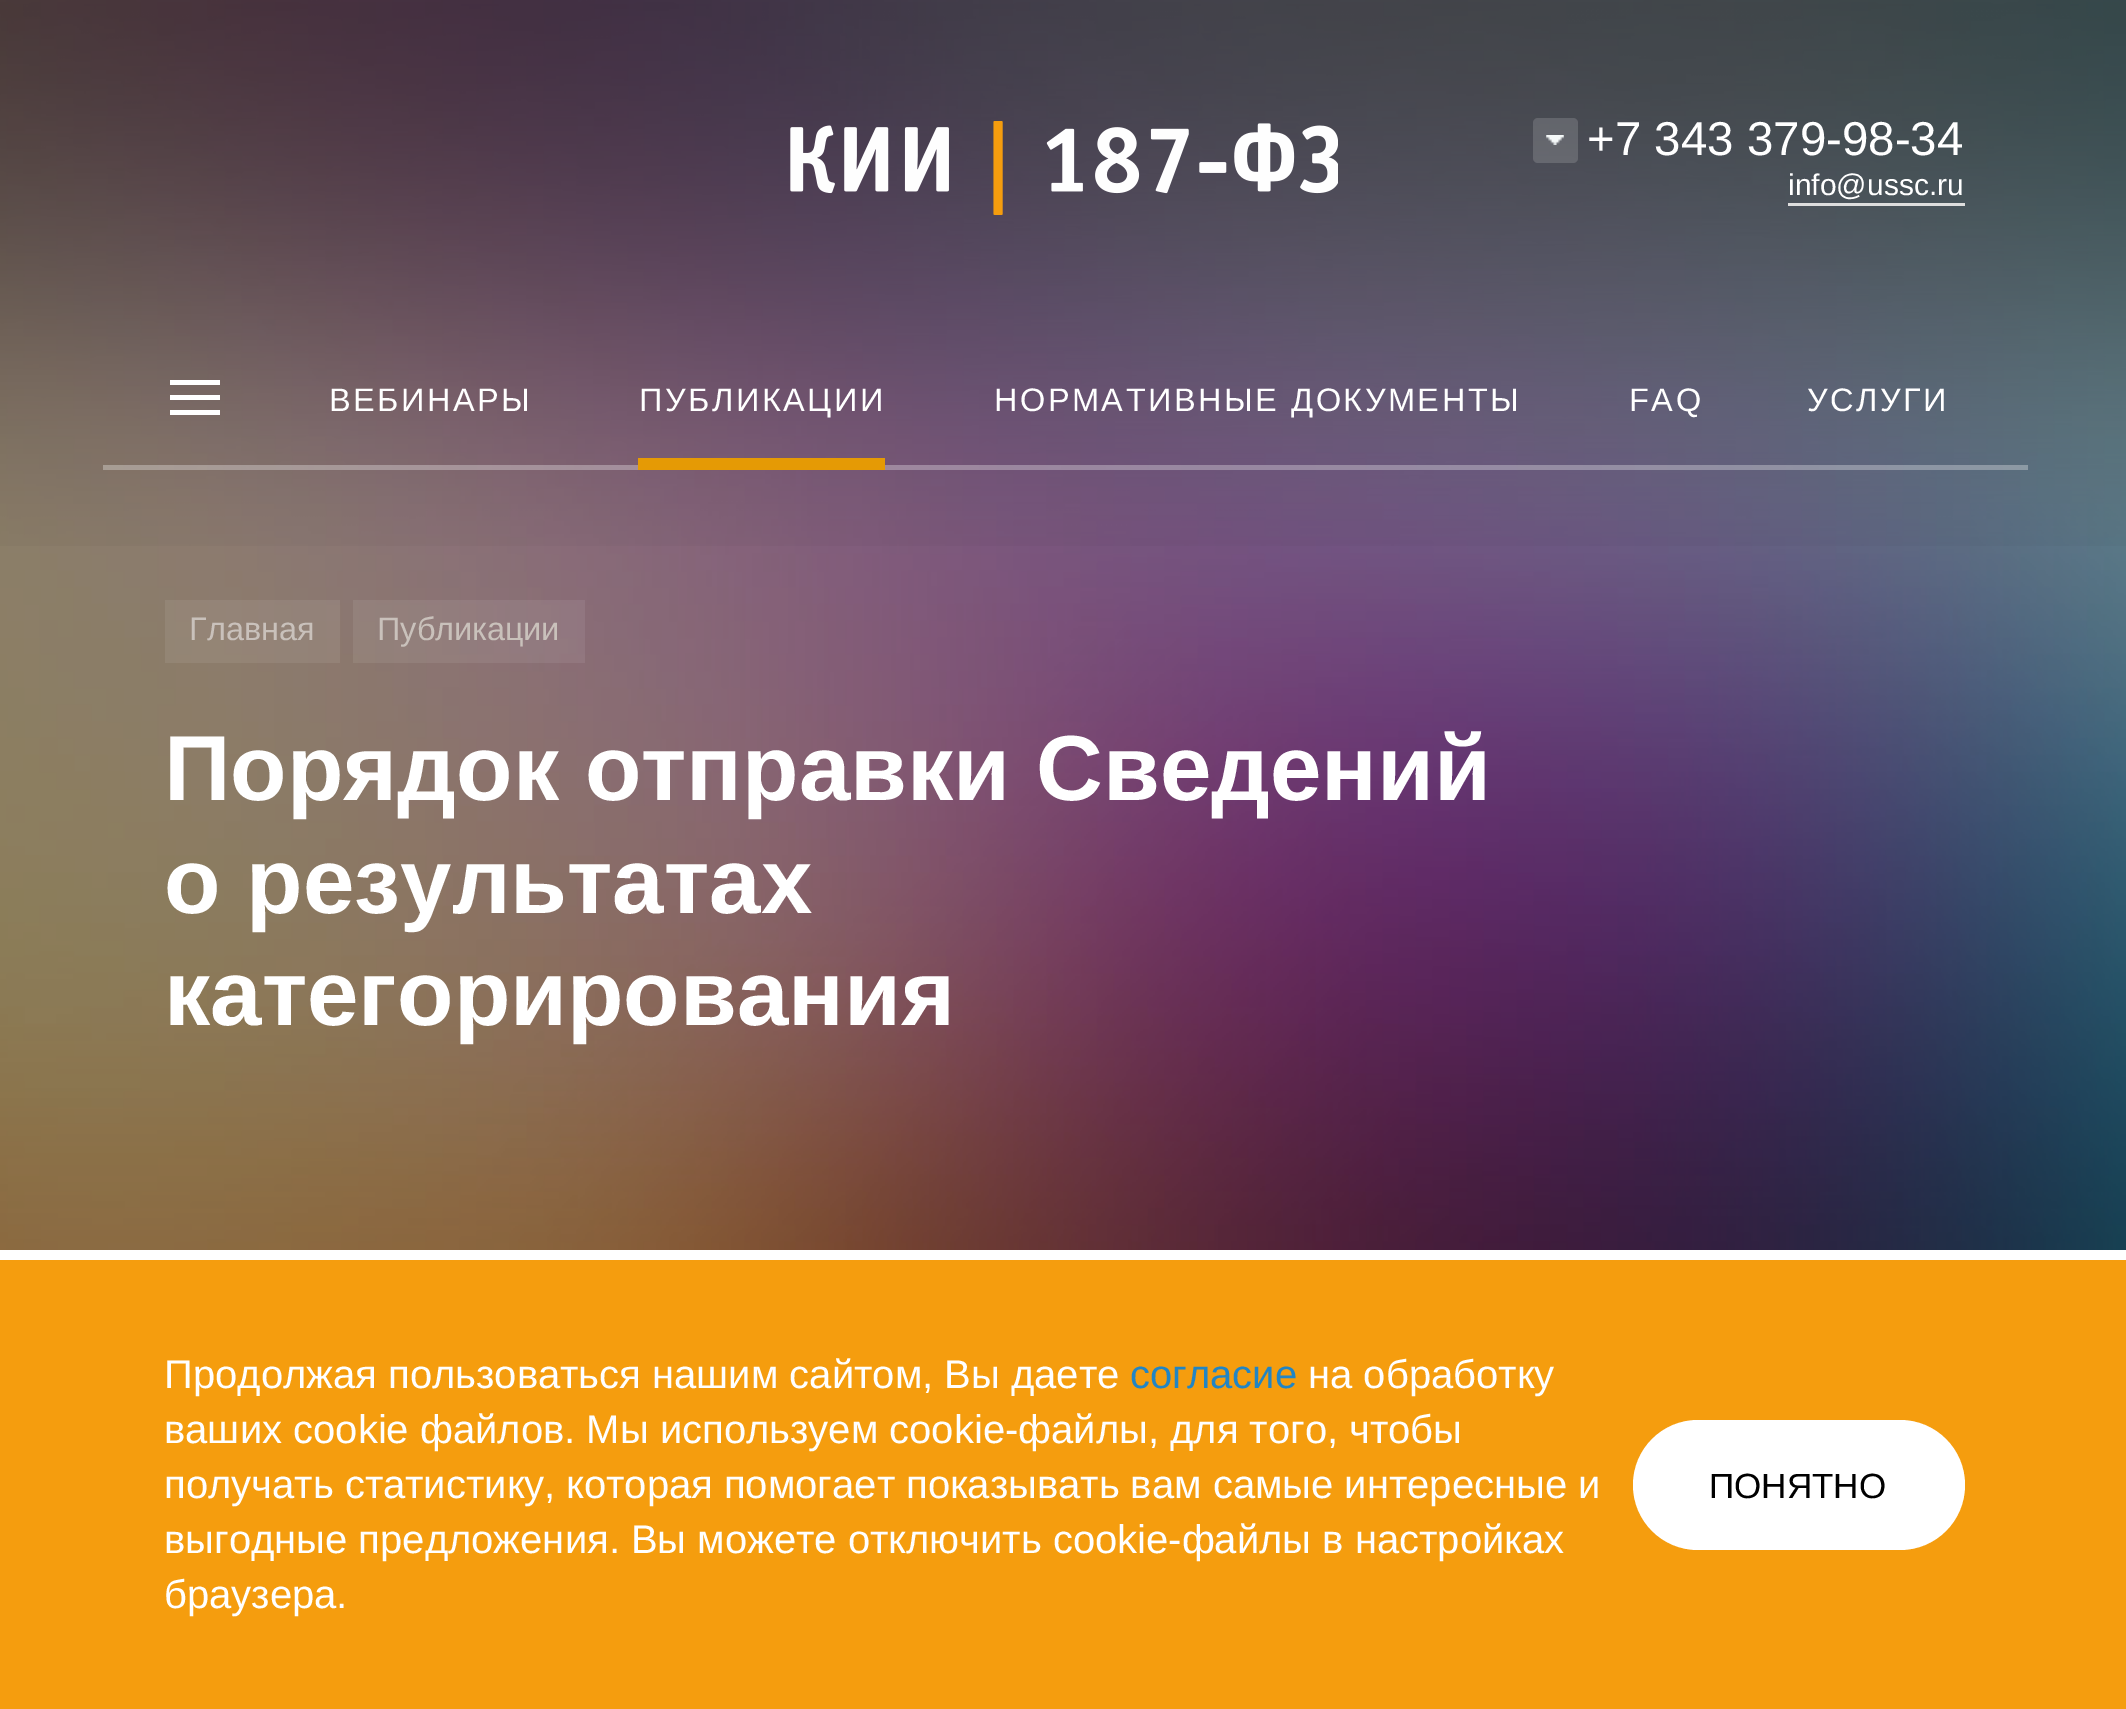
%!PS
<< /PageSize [2126 1709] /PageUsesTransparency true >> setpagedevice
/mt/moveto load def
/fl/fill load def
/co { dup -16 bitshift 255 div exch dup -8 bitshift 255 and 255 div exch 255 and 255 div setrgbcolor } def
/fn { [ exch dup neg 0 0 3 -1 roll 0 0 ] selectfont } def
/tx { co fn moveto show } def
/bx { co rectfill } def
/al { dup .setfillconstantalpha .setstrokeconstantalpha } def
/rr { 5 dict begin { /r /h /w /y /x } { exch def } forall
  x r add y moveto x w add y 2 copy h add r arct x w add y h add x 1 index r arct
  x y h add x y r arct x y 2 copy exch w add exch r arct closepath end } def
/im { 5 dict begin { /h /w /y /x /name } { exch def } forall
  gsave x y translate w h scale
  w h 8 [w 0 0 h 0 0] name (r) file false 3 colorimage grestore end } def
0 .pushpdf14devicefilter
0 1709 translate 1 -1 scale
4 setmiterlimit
0 0 2126 1709 16#FFFFFF bx
(media/3.raw) 0 0 2126 1250 im
(media/4.raw) 0 0 2126 546 im
(media/1.raw) 790 121 548 94 im
0.15 al
1533 118 45 45 5 rr fl
1 al
(media/2.raw) 1546 135 18 10 im
1788 203 177 3 16#DEDEDE bx
0.3 al
103 465 1925 5 16#FFFFFF bx
1 al
170 380 50 5 16#FFFFFF bx
170 395 50 5 16#FFFFFF bx
170 410 50 5 16#FFFFFF bx
638 458 247 12 16#E59A05 bx
0.07 al
165 600 175 63 16#FFFFFF bx
353 600 232 63 16#FFFFFF bx
1 al
0 1260 2126 449 16#F59D0E bx
16#FFFFFF co
1633 1420 332 130 65 rr fl
(+7 343 379-98-34) 1587 155 /LiberationSans-Regular 47.5 16#FFFFFF tx
(info@ussc.ru) 1788 195 /LiberationSans-Regular 30 16#FFFFFF tx
/LiberationSans-Regular 32.5 fn
329 411 mt 2.5 0 (ВЕБИНАРЫ) ashow
639 411 mt 2.5 0 (ПУБЛИКАЦИИ) ashow
994 411 mt 2.5 0 (НОРМАТИВНЫЕ ДОКУМЕНТЫ) ashow
1629 411 mt 2.5 0 (FAQ) ashow
1807 411 mt 2.5 0 (УСЛУГИ) ashow
(Главная) 189 640 /LiberationSans-Regular 32.5 16#C9C1BB tx
(Публикации) 377 640 /LiberationSans-Regular 32.5 16#C9C1BB tx
(Порядок отправки Сведений) 164 800 /LiberationSans-Bold 92.5 16#FFFFFF tx
(о результатах) 164 913 /LiberationSans-Bold 92.5 16#FFFFFF tx
(категорирования) 164 1025 /LiberationSans-Bold 92.5 16#FFFFFF tx
(Продолжая пользоваться нашим сайтом, Вы даете) 164 1388 /LiberationSans-Regular 40 16#FFFFFF tx
(согласие) 1130 1388 /LiberationSans-Regular 40 16#2285C4 tx
(на обработку) 1308 1388 /LiberationSans-Regular 40 16#FFFFFF tx
(ваших cookie файлов. Мы используем cookie-файлы, для того, чтобы) 164 1443 /LiberationSans-Regular 40 16#FFFFFF tx
(получать статистику, которая помогает показывать вам самые интересные и) 164 1498 /LiberationSans-Regular 40 16#FFFFFF tx
(выгодные предложения. Вы можете отключить cookie-файлы в настройках) 164 1553 /LiberationSans-Regular 40 16#FFFFFF tx
(браузера.) 164 1608 /LiberationSans-Regular 40 16#FFFFFF tx
(ПОНЯТНО) 1709 1498 /LiberationSans-Regular 35 16#000000 tx
.poppdf14devicefilter showpage
